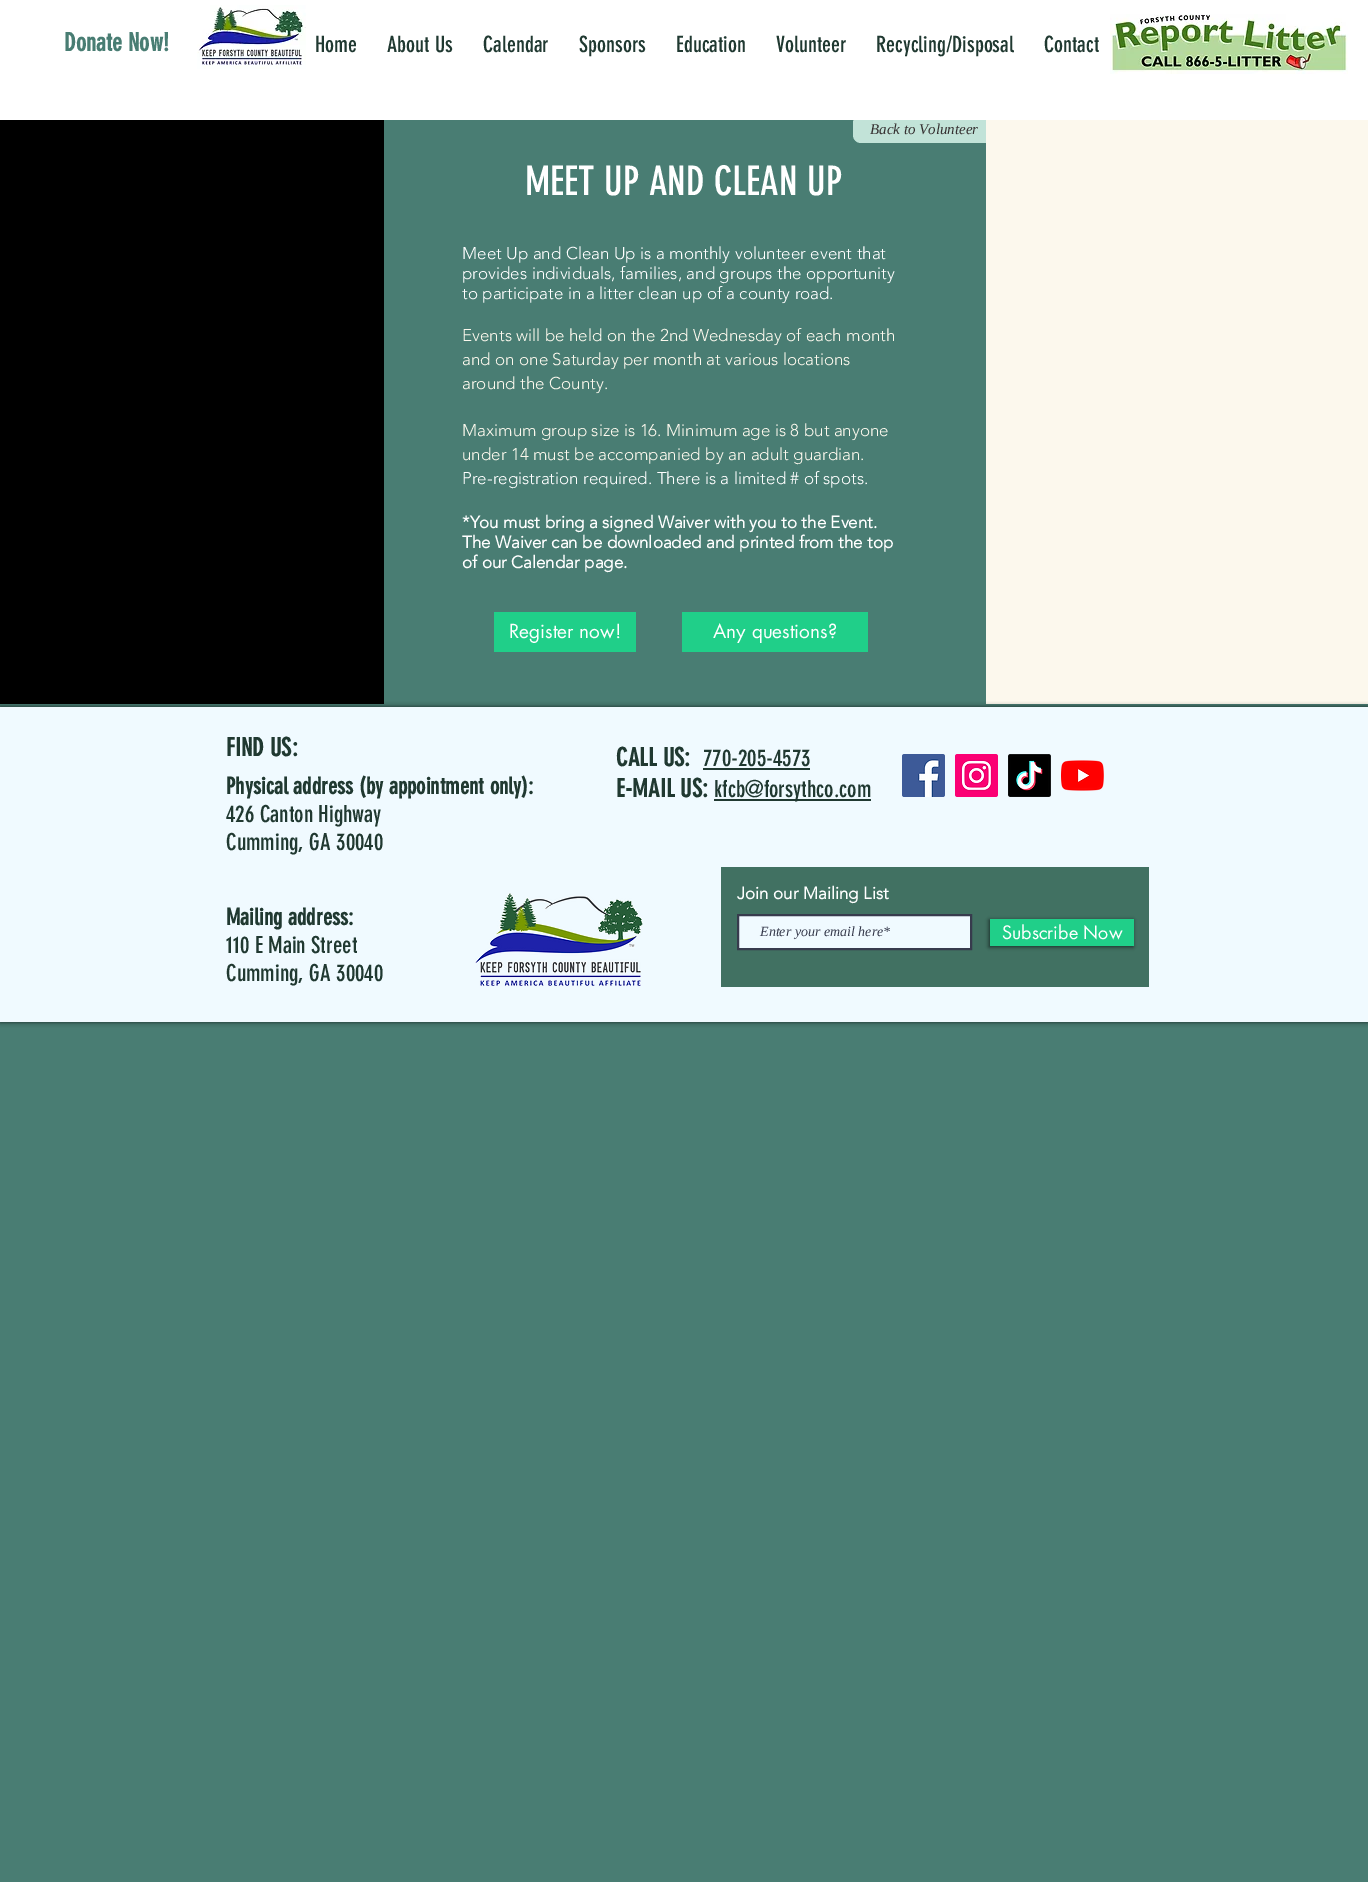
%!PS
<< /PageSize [1368 1882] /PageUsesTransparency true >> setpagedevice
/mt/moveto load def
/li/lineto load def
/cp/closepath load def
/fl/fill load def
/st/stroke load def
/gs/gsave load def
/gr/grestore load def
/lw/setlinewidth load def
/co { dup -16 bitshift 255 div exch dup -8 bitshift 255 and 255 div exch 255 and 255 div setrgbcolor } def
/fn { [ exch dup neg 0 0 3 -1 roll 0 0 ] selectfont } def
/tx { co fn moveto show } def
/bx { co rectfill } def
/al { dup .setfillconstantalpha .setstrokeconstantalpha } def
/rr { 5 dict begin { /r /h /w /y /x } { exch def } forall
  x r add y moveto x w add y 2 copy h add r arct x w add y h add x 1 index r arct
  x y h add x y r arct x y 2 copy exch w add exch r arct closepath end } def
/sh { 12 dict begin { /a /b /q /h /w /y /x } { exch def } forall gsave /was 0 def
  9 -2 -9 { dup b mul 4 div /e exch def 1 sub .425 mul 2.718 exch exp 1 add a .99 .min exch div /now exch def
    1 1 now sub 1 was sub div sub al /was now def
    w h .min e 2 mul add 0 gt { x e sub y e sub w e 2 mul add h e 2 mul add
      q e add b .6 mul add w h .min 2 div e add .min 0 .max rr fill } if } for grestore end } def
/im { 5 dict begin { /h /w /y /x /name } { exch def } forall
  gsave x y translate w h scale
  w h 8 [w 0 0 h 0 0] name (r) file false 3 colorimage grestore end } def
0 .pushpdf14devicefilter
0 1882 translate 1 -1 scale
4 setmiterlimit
0 0 1368 1882 16#497D73 bx
16#C2E3D8 co
853 115 142 28 8 rr fl
0 0 1368 120 16#FFFFFF bx
(media/1.raw) 197 5 109 64 im
(media/2.raw) 1110 14 238 60 im
0 120 384 584 16#000000 bx
494 612 142 40 16#20CF89 bx
682 612 186 40 16#20CF89 bx
986 120 382 584 16#FCF8ED bx
16#000000 co
0 707 1368 315 0 2.5 .7 sh
0 707 1368 315 16#F0FAFF bx
703 768 107 2 16#203931 bx
(media/3.raw) 902 754 43 43 im
(media/4.raw) 955 754 43 43 im
(media/5.raw) 1008 754 43 43 im
(media/6.raw) 1061 760 43 31 im
714 799 157 2 16#203931 bx
(media/7.raw) 475 893 168 93 im
721 867 428 120 16#417162 bx
16#F0FAFF co
738 915 mt 971 915 li 971 949 li 738 949 li cp gs fl gr
16#373B4D co
2 lw
st
16#000000 co
989 920 144 27 0 2 .6 sh
990 919 144 27 16#20CF89 bx
(Donate Now!) 64 51 /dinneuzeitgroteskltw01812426-Bold 25 16#497D73 tx
(Home) 315 52 /dinneuzeitgroteskltw01812426-Regular 22 16#203931 tx
(About Us) 387 52 /dinneuzeitgroteskltw01812426-Regular 22 16#203931 tx
(Calendar) 483 52 /dinneuzeitgroteskltw01812426-Regular 22 16#203931 tx
(Sponsors) 579 52 /dinneuzeitgroteskltw01812426-Regular 22 16#203931 tx
(Education) 676 52 /dinneuzeitgroteskltw01812426-Regular 22 16#203931 tx
(Volunteer) 776 52 /dinneuzeitgroteskltw01812426-Regular 22 16#203931 tx
(Recycling/Disposal) 876 52 /dinneuzeitgroteskltw01812426-Regular 22 16#203931 tx
(Contact) 1044 52 /dinneuzeitgroteskltw01812426-Regular 22 16#203931 tx
(Back to Volunteer) 870 134 /LiberationSerif-Italic 15 16#353131 tx
(MEET UP AND CLEAN UP) 525 195 /dinneuzeitgroteskltw01812426-Regular 40 16#FFFFFF tx
(Meet Up and Clean Up is a monthly volunteer event that) 462 259 /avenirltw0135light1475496-Light 17 16#FFFFFF tx
(provides individuals, families, and groups the opportunity) 462 279 /avenirltw0135light1475496-Light 17 16#FFFFFF tx
(to participate in a litter clean up of a county road.) 462 299 /avenirltw0135light1475496-Light 17 16#FFFFFF tx
(Events will be held on the 2nd Wednesday of each month) 462 341 /avenirltw0135light1475496-Light 17 16#FCF8ED tx
(and on one Saturday per month at various locations) 462 365 /avenirltw0135light1475496-Light 17 16#FCF8ED tx
(around the County.) 462 389 /avenirltw0135light1475496-Light 17 16#FCF8ED tx
(Maximum group size is 16. Minimum age is 8 but anyone) 462 436 /avenirltw0135light1475496-Light 17 16#FCF8ED tx
(under 14 must be accompanied by an adult guardian.) 462 460 /avenirltw0135light1475496-Light 17 16#FCF8ED tx
(Pre-registration required. There is a limited # of spots.) 462 484 /avenirltw0135light1475496-Light 17 16#FFFFFF tx
(*You must bring a signed Waiver with you to the Event.) 462 528 /avenirltw0135light1475496-Bold 17 16#FFFFFF tx
(The Waiver can be downloaded and printed from the top) 462 548 /avenirltw0135light1475496-Bold 17 16#FFFFFF tx
(of our Calendar page.) 462 568 /avenirltw0135light1475496-Bold 17 16#FFFFFF tx
(Register now!) 509 638 /futura-Regular 19 16#FFFFFF tx
(Any questions?) 713 638 /futura-Regular 19 16#FFFFFF tx
(FIND US:) 226 756 /dinneuzeitgroteskltw01812426-Bold 25 16#203931 tx
(CALL US:) 616 766 /dinneuzeitgroteskltw01812426-Bold 25 16#203931 tx
(770-205-4573) 703 766 /dinneuzeitgroteskltw01812426-Regular 23 16#203931 tx
(Physical address \(by appointment only\):) 226 794 /dinneuzeitgroteskltw01812426-Bold 23 16#203931 tx
(426 Canton Highway) 226 822 /dinneuzeitgroteskltw01812426-Regular 23 16#203931 tx
(Cumming, GA 30040) 226 850 /dinneuzeitgroteskltw01812426-Regular 23 16#203931 tx
(E-MAIL US:) 616 797 /dinneuzeitgroteskltw01812426-Bold 25 16#203931 tx
(kfcb@forsythco.com) 714 797 /dinneuzeitgroteskltw01812426-Regular 23 16#203931 tx
(Mailing address:) 226 925 /dinneuzeitgroteskltw01812426-Bold 23 16#203931 tx
(110 E Main Street) 226 953 /dinneuzeitgroteskltw01812426-Regular 23 16#203931 tx
(Cumming, GA 30040) 226 981 /dinneuzeitgroteskltw01812426-Regular 23 16#203931 tx
(Join our Mailing List) 737 899 /avenirltw0135light1475496-Bold 17 16#FFFFFF tx
(Enter your email here*) 760 936 /LiberationSerif-Italic 14 16#373B4D tx
(Subscribe Now) 1002 939 /futura-Regular 18 16#FFFFFF tx
.poppdf14devicefilter showpage
